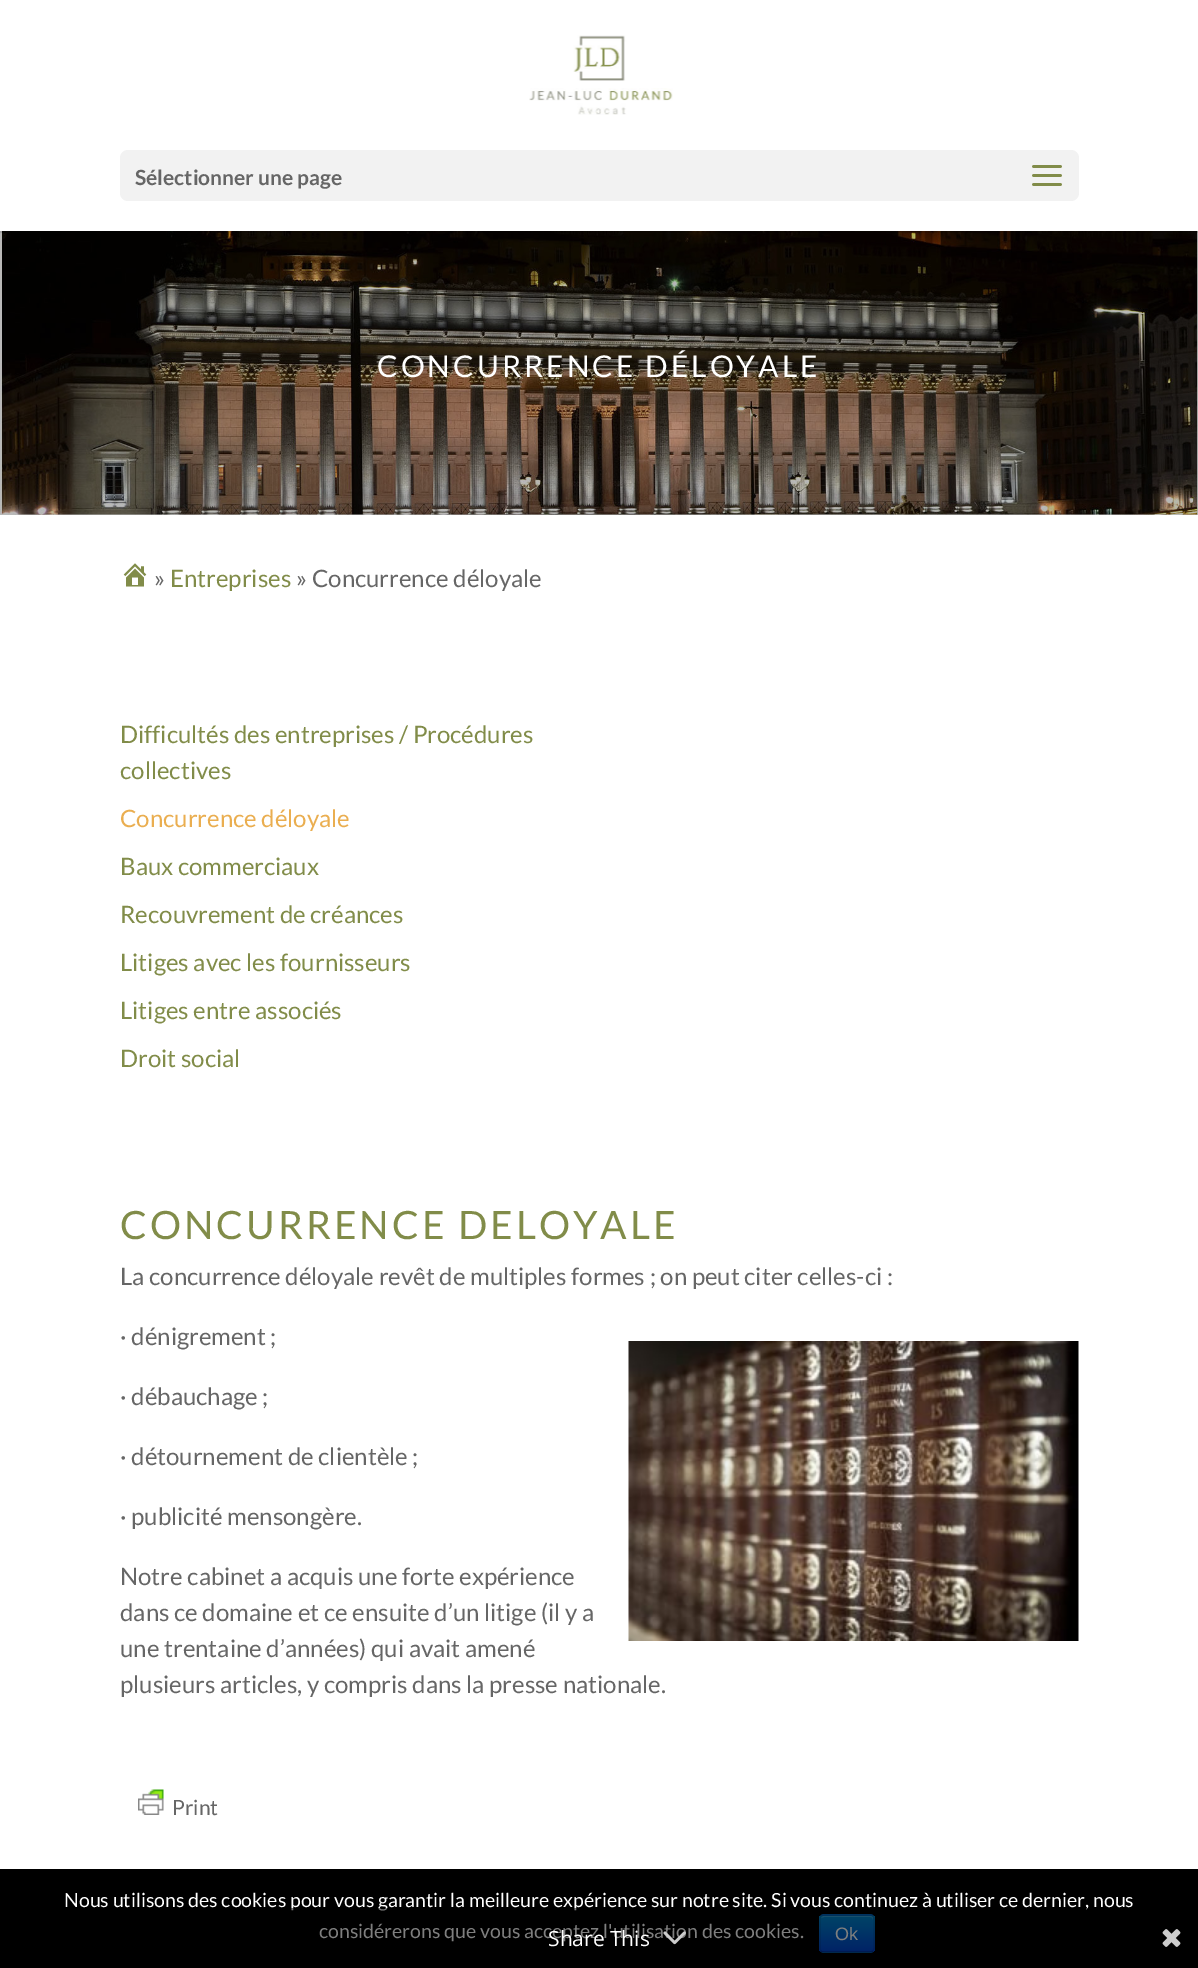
%!PS
<< /PageSize [1198 1968] /PageUsesTransparency true >> setpagedevice
/mt/moveto load def
/li/lineto load def
/ct/curveto load def
/cp/closepath load def
/fl/fill load def
/st/stroke load def
/gs/gsave load def
/gr/grestore load def
/lw/setlinewidth load def
/co { dup -16 bitshift 255 div exch dup -8 bitshift 255 and 255 div exch 255 and 255 div setrgbcolor } def
/fn { [ exch dup neg 0 0 3 -1 roll 0 0 ] selectfont } def
/tx { co fn moveto show } def
/bx { co rectfill } def
/al { dup .setfillconstantalpha .setstrokeconstantalpha } def
/rr { 5 dict begin { /r /h /w /y /x } { exch def } forall
  x r add y moveto x w add y 2 copy h add r arct x w add y h add x 1 index r arct
  x y h add x y r arct x y 2 copy exch w add exch r arct closepath end } def
/im { 5 dict begin { /h /w /y /x /name } { exch def } forall
  gsave x y translate w h scale
  w h 8 [w 0 0 h 0 0] name (r) file false 3 colorimage grestore end } def
0 .pushpdf14devicefilter
0 1968 translate 1 -1 scale
4 setmiterlimit
0 0 1198 1968 16#FFFFFF bx
0 514 1198 1 16#BABABA bx
(media/3.raw) 0 231 1198 284 im
0.1 al
16#000000 co
0 231 mt 0 233 li 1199 233 li 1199 2 li 1198 2 li 1198 231 li cp fl
1 al
(media/1.raw) 529 35 144 80 im
16#F2F2F2 co
120 150 959 51 8 rr fl
(media/2.raw) 1032 165 30 21 im
(media/4.raw) 123 563 24 24 im
(media/5.raw) 628 1341 451 300 im
(media/6.raw) 138 1789 26 26 im
0 1869 1198 99 16#000000 bx
16#006DCC co
819 1914 56 39 5 rr fl
gs
819 1914 56 39 5 rr clip newpath
gs 819 1916 mt 875 1916 li 875 1952 li 819 1952 li cp clip newpath
<< /ShadingType 2 /ColorSpace /DeviceRGB /Coords [847 1916 847 1952] /Extend [true true] /Function << /FunctionType 2 /Domain [0 1] /C0 [0 .533 .8] /C1 [0 .267 .8] /N 1 >> >> shfill gr
gr
16#339FD6 co
824 1917 mt 870 1917 li 872 1917 873 1918 873 1920 ct 873 1919 li 873 1917 872 1916 870 1916 ct 824 1916 li 823 1916 822 1917 821 1918 ct cp fl
0.25 al
16#000000 co
1.5 lw
872.5 1951 mt 872 1952 871 1952 870 1952 ct 823.5 1952 li 822.5 1952 821.5 1952 821 1951 ct st
0.1 al
821 1951 mt 820 1950.5 820 1949.5 820 1948.5 ct 820 1918.5 li 820 1917.5 820 1916.5 821 1916 ct 821.5 1915 822.5 1915 823.5 1915 ct 870 1915 li 871 1915 872 1915 872.5 1916 ct 873.5 1916.5 874 1917.5 874 1918.5 ct 874 1948.5 li 874 1949.5 873.5 1950.5 872.5 1951 ct st
1 al
(media/8.raw) 1162 1929 19 18 im
(Sélectionner une page) 135 185 /Lato-Bold 21 16#666666 tx
/Lato-Regular 30 fn
16#FFFFFF co
377 377 mt 3 0 (CONCURRENCE DÉLOYALE) ashow
(») 154 587 /Lato-Regular 24 16#666666 tx
(Entreprises) 170 587 /Lato-Regular 24 16#818C49 tx
(» Concurrence déloyale) 296 587 /Lato-Regular 24 16#666666 tx
(Difficultés des entreprises / Procédures) 120 743 /Lato-Regular 24 16#818C49 tx
(collectives) 120 779 /Lato-Regular 24 16#818C49 tx
(Concurrence déloyale) 120 827 /Lato-Regular 24 16#EAAE50 tx
(Baux commerciaux) 120 875 /Lato-Regular 24 16#818C49 tx
(Recouvrement de créances) 120 923 /Lato-Regular 24 16#818C49 tx
(Litiges avec les fournisseurs) 120 971 /Lato-Regular 24 16#818C49 tx
(Litiges entre associés) 120 1019 /Lato-Regular 24 16#818C49 tx
(Droit social) 120 1067 /Lato-Regular 24 16#818C49 tx
/Lato-Regular 39 fn
120 1239 mt 3 0 (CONCURRENCE DELOYALE) ashow
(La concurrence déloyale revêt de multiples formes ; on peut citer celles-ci :) 120 1285 /Lato-Regular 24 16#666666 tx
(· dénigrement ;) 120 1345 /Lato-Regular 24 16#666666 tx
(· débauchage ;) 120 1405 /Lato-Regular 24 16#666666 tx
(· détournement de clientèle ;) 120 1465 /Lato-Regular 24 16#666666 tx
(· publicité mensongère.) 120 1525 /Lato-Regular 24 16#666666 tx
(Notre cabinet a acquis une forte expérience) 120 1585 /Lato-Regular 24 16#666666 tx
(dans ce domaine et ce ensuite d’un litige \(il y a) 120 1621 /Lato-Regular 24 16#666666 tx
(une trentaine d’années\) qui avait amené) 120 1657 /Lato-Regular 24 16#666666 tx
(plusieurs articles, y compris dans la presse nationale.) 120 1693 /Lato-Regular 24 16#666666 tx
(Print) 172 1815 /Lato-Regular 21 16#666666 tx
(Nous utilisons des cookies pour vous garantir la meilleure expérience sur notre site. Si vous continuez à utiliser ce dernier, nous) 64 1907 /Lato-Regular 19.5 16#FFFFFF tx
(considérerons que vous acceptez l'utilisation des cookies.) 319 1938 /Lato-Regular 19.5 16#FFFFFF tx
(Ok) 835 1940 /LiberationSans-Regular 18 16#FFFFFF tx
0.5 al
291 1908 797 45 16#000000 bx
1 al
(Share This) 548 1946 /OpenSans-Regular 21 16#FFFFFF tx
(media/7.raw) 663 1931 23 14 im
.poppdf14devicefilter showpage
